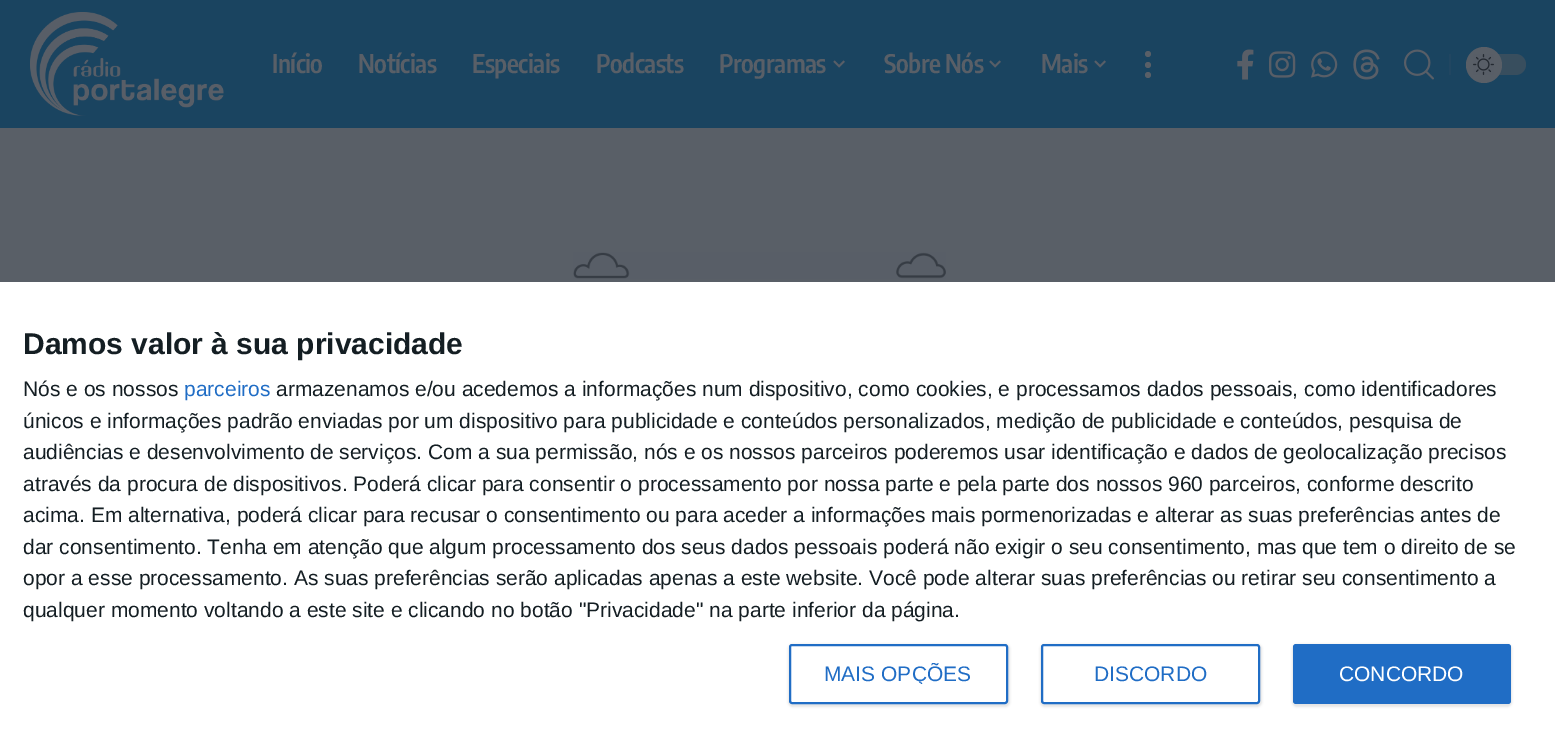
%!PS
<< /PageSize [1555 740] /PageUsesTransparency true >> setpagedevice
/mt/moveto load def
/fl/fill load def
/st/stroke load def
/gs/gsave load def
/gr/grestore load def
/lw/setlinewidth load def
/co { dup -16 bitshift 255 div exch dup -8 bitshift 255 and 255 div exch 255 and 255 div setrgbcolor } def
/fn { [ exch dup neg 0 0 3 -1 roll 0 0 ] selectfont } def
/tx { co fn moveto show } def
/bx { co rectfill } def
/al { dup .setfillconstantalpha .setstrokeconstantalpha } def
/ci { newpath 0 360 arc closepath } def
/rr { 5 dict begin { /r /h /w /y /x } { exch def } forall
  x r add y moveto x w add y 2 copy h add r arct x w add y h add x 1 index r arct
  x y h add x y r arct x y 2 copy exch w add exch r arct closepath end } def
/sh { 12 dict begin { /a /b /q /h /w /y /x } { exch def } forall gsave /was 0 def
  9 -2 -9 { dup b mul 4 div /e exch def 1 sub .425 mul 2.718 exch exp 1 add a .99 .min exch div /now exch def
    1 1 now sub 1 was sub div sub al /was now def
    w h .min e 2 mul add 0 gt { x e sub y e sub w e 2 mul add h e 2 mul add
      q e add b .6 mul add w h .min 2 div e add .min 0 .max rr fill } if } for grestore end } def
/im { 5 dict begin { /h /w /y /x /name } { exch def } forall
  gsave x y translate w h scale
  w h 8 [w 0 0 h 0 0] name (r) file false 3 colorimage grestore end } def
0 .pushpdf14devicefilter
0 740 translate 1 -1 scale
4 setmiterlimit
0 0 1555 740 16#595F67 bx
0 0 1555 128 16#1A4460 bx
(media/1.raw) 30 12 194 104 im
(media/2.raw) 833 60 12 8 im
(media/2.raw) 989 60 12 8 im
(media/2.raw) 1094 60 12 8 im
16#595F67 co
1148 54 3 ci fl
1148 65 3 ci fl
1148 75 3 ci fl
(media/3.raw) 1237 49 17 31 im
(media/4.raw) 1269 51 27 27 im
(media/5.raw) 1311 51 27 27 im
(media/6.raw) 1353 49 27 31 im
(media/7.raw) 1404 49 30 31 im
1449 54 2 21 16#214661 bx
16#384E5E co
1466 54 60 21 10.5 rr fl
16#595F67 co
1484 65 18 ci fl
(media/8.raw) 1473 54 21 21 im
(media/9.raw) 573 252 373 27 im
0 282 1555 458 16#FFFFFF bx
16#000000 co
788 644 222 63 5 1 .1 sh
16#FFFFFF co
790 645 217 58 2 rr gs fl gr
16#206DC5 co
2 lw
st
16#000000 co
1040 644 222 63 5 1 .1 sh
16#FFFFFF co
1042 645 217 58 2 rr gs fl gr
16#206DC5 co
st
16#000000 co
1292 644 220 63 5 1 .1 sh
16#206DC5 co
1293 644 218 60 3 rr fl
/EncodeSansCondensed-SemiBold 25.5 fn
16#595F67 co
272 73 mt -.5 0 (Início) ashow
358 73 mt -.5 0 (Notícias) ashow
472 73 mt -.5 0 (Especiais) ashow
596 73 mt -.5 0 (Podcasts) ashow
719 73 mt -.5 0 (Programas) ashow
884 73 mt -.5 0 (Sobre Nós) ashow
1041 73 mt -.5 0 (Mais) ashow
(Damos valor à sua privacidade) 23 354 /LiberationSans-Bold 30 16#141E23 tx
(Nós e os nossos) 23 396 /LiberationSans-Regular 21 16#141E23 tx
(parceiros) 184 396 /LiberationSans-Regular 21 16#206DC5 tx
(armazenamos e/ou acedemos a informações num dispositivo, como cookies, e processamos dados pessoais, como identificadores) 276 396 /LiberationSans-Regular 21 16#141E23 tx
(únicos e informações padrão enviadas por um dispositivo para publicidade e conteúdos personalizados, medição de publicidade e conteúdos, pesquisa de) 23 428 /LiberationSans-Regular 21 16#141E23 tx
(audiências e desenvolvimento de serviços. Com a sua permissão, nós e os nossos parceiros poderemos usar identificação e dados de geolocalização precisos) 23 459 /LiberationSans-Regular 21 16#141E23 tx
(através da procura de dispositivos. Poderá clicar para consentir o processamento por nossa parte e pela parte dos nossos 960 parceiros, conforme descrito) 23 491 /LiberationSans-Regular 21 16#141E23 tx
(acima. Em alternativa, poderá clicar para recusar o consentimento ou para aceder a informações mais pormenorizadas e alterar as suas preferências antes de) 23 522 /LiberationSans-Regular 21 16#141E23 tx
(dar consentimento. Tenha em atenção que algum processamento dos seus dados pessoais poderá não exigir o seu consentimento, mas que tem o direito de se) 23 554 /LiberationSans-Regular 21 16#141E23 tx
(opor a esse processamento. As suas preferências serão aplicadas apenas a este website. Você pode alterar suas preferências ou retirar seu consentimento a) 23 585 /LiberationSans-Regular 21 16#141E23 tx
(qualquer momento voltando a este site e clicando no botão "Privacidade" na parte inferior da página.) 23 617 /LiberationSans-Regular 21 16#141E23 tx
gs
825 663 147 21 rectclip
(MAIS OPÇÕES) 824 681 /LiberationSans-Regular 21 16#206DC5 tx
gr
(DISCORDO) 1094 681 /LiberationSans-Regular 21 16#206DC5 tx
(CONCORDO) 1339 681 /LiberationSans-Regular 21 16#FFFFFF tx
.poppdf14devicefilter showpage
